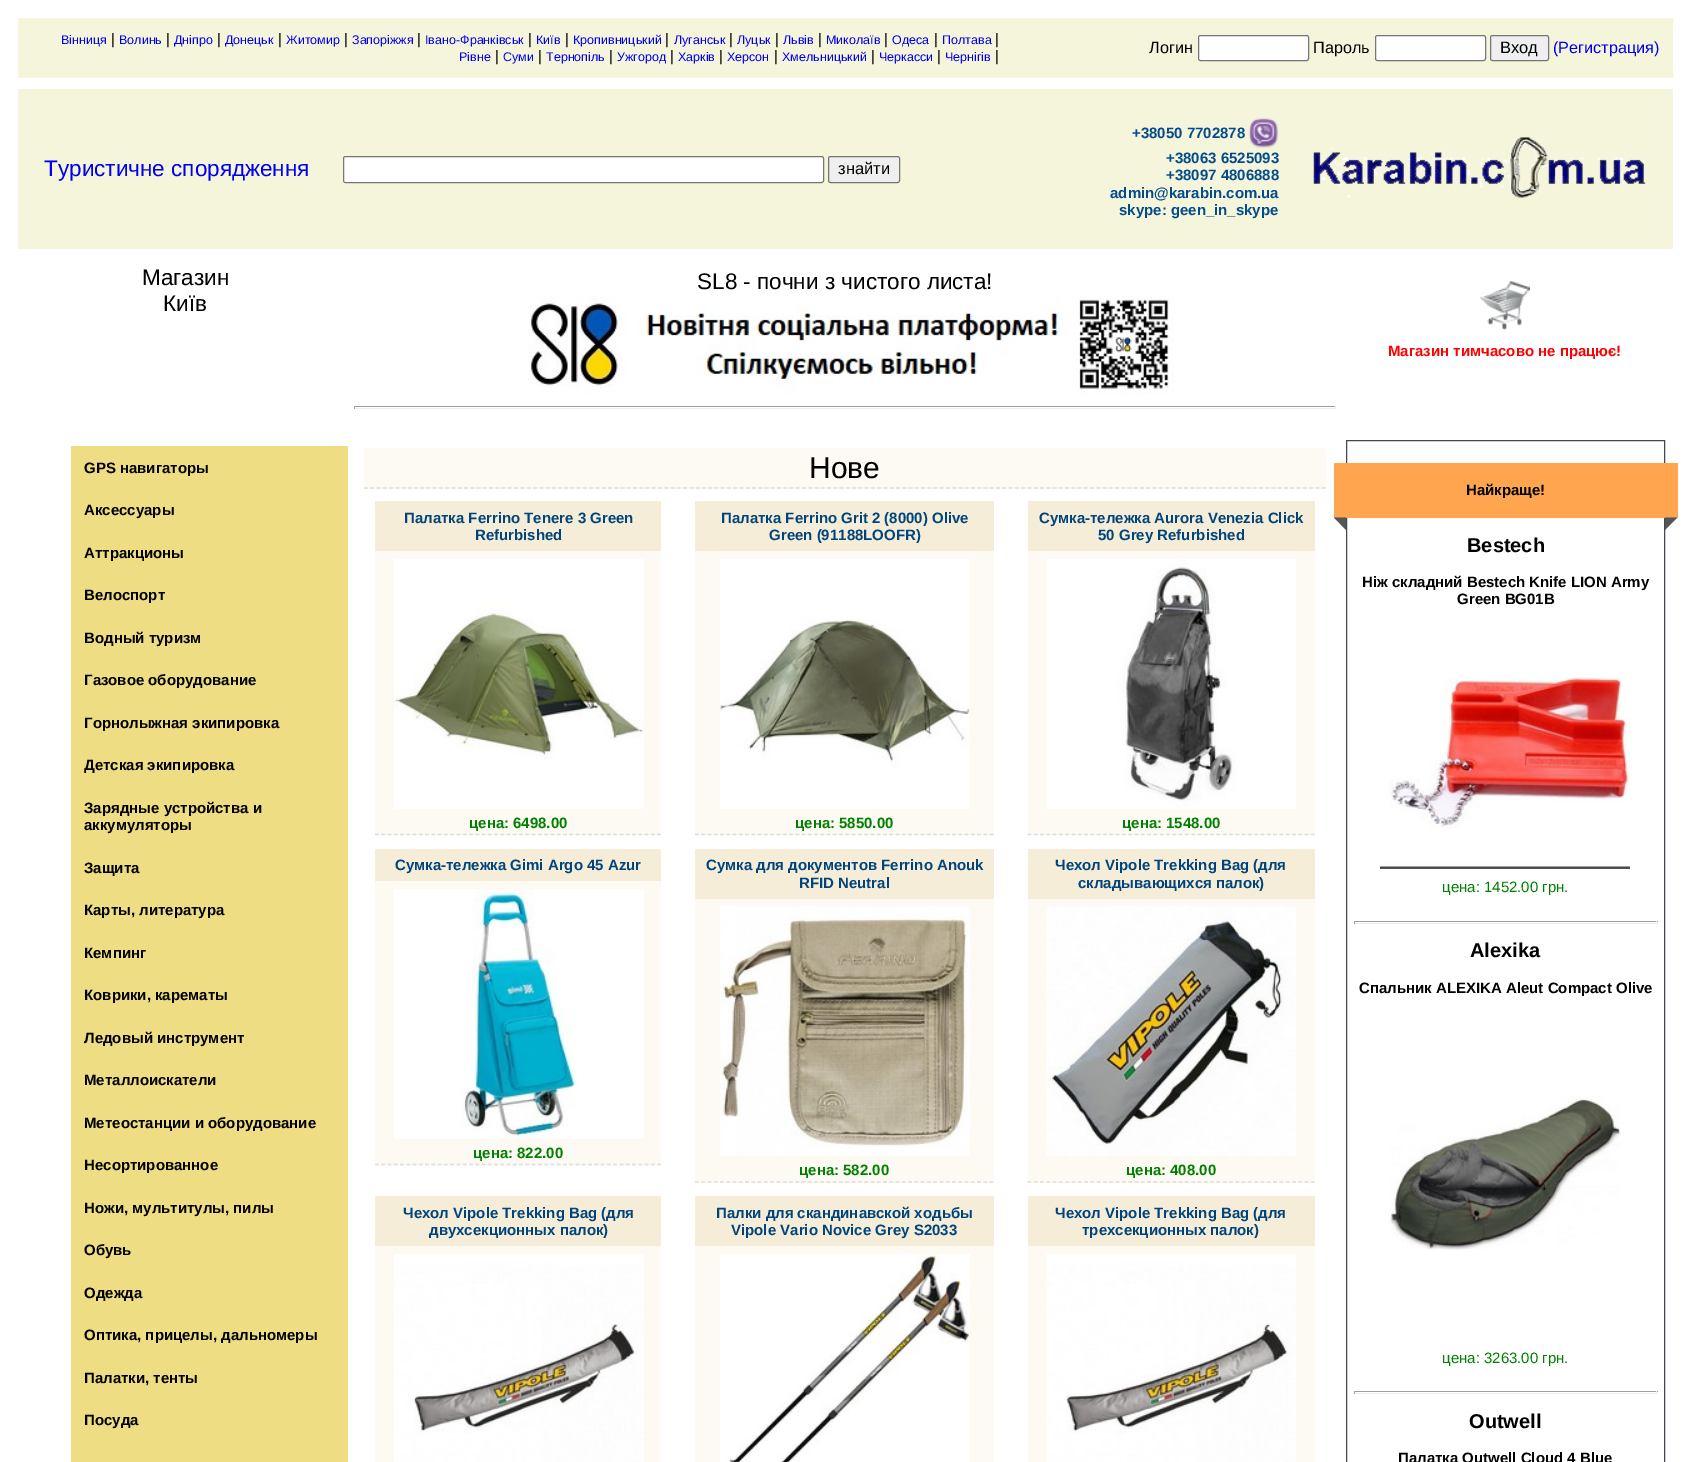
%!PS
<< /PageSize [1689 1462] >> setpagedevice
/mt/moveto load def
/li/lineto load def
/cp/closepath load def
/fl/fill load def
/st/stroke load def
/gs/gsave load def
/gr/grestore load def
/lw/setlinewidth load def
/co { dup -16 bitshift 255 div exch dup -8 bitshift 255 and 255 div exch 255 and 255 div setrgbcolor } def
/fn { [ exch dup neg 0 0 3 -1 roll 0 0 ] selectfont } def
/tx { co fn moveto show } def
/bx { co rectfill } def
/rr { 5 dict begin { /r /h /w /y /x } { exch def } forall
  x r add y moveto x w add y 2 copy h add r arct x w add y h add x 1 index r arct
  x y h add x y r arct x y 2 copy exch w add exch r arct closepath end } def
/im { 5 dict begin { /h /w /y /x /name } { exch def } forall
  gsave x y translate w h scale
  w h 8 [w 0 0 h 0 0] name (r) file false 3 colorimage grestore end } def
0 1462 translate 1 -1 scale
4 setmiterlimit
0 0 1689 1462 16#FFFFFF bx
18 18 1655 60 16#F5F5DC bx
16#FFFFFF co
1198.5 35.5 110 25 2 rr gs fl gr
16#767676 co
st
16#FFFFFF co
1375.5 35.5 110 25 2 rr gs fl gr
16#767676 co
st
16#EFEFEF co
1490.5 35.5 58 25 2 rr gs fl gr
16#767676 co
st
18 89 1655 160 16#F5F5DC bx
16#FFFFFF co
343.5 156.5 480 26 2 rr gs fl gr
16#767676 co
st
16#EFEFEF co
828.5 156.5 71 26 2 rr gs fl gr
16#767676 co
st
(media/1.raw) 1248 118 31 30 im
(media/2.raw) 1310 137 338 61 im
(media/3.raw) 528 295 646 100 im
354 406 982 1 16#9F9F9F bx
1335 406 1 3 16#EEEEEE bx
354 408 982 1 16#EEEEEE bx
354 406 1 3 16#9F9F9F bx
(media/4.raw) 1480 281 50 49 im
71 446 277 1016 16#EEDD82 bx
364 448 962 41 16#FCFAF3 bx
16#DDDDDD co
1.2 lw
[3.75 2.51] 0 setdash
364 488 mt 1326 488 li st
375 501 286 50 16#F5EDD7 bx
375 551 286 284 16#FCFAF3 bx
16#DDDDDD co
[3.75 2.52] 0 setdash
375 834.5 mt 661 834.5 li st
(media/5.raw) 394 559 250 250 im
695 501 299 50 16#F5EDD7 bx
695 551 299 284 16#FCFAF3 bx
16#DDDDDD co
695 834.5 mt 994 834.5 li st
(media/6.raw) 720 559 250 250 im
1028 501 287 50 16#F5EDD7 bx
1028 551 287 284 16#FCFAF3 bx
16#DDDDDD co
[3.75 2.55] 0 setdash
1027.5 834.5 mt 1315 834.5 li st
(media/7.raw) 1046 559 250 250 im
375 849 286 32 16#F5EDD7 bx
375 881 286 284 16#FCFAF3 bx
16#DDDDDD co
[3.75 2.52] 0 setdash
375 1164.5 mt 661 1164.5 li st
(media/8.raw) 394 889 250 250 im
695 849 299 50 16#F5EDD7 bx
695 899 299 284 16#FCFAF3 bx
16#DDDDDD co
695 1182 mt 994 1182 li st
(media/9.raw) 720 906 250 250 im
1028 849 287 50 16#F5EDD7 bx
1028 899 287 284 16#FCFAF3 bx
16#DDDDDD co
[3.75 2.55] 0 setdash
1027.5 1182 mt 1315 1182 li st
(media/10.raw) 1046 906 250 250 im
375 1196 286 50 16#F5EDD7 bx
375 1246 286 216 16#FCFAF3 bx
(media/11.raw) 394 1254 250 208 im
695 1196 299 50 16#F5EDD7 bx
695 1246 299 216 16#FCFAF3 bx
(media/12.raw) 720 1254 250 208 im
1028 1196 287 50 16#F5EDD7 bx
1028 1246 287 216 16#FCFAF3 bx
(media/13.raw) 1046 1254 250 208 im
16#404951 co
1 lw
[] 0 setdash
1346.5 440.5 318 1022 rectstroke
1334 463 344 55 16#FFA54F bx
16#555555 co
1334 517.5 mt 1346 517.5 li 1346 530 li cp fl
1665 517.5 mt 1677.5 517.5 li 1665 530 li cp fl
(media/14.raw) 1380 677 250 192 im
1354 921 304 1 16#9F9F9F bx
1656 921 1 3 16#EEEEEE bx
1354 923 304 1 16#EEEEEE bx
1354 921 1 3 16#9F9F9F bx
(media/15.raw) 1390 1096 231 154 im
1354 1391 304 1 16#9F9F9F bx
1656 1391 1 3 16#EEEEEE bx
1354 1393 304 1 16#EEEEEE bx
1354 1391 1 3 16#9F9F9F bx
(Вінниця) 61 44 /LiberationSans-Regular 12.5 16#0000EE tx
(|) 111 44 /LiberationSans-Regular 15 16#000000 tx
(Волинь) 119 44 /LiberationSans-Regular 12.5 16#0000EE tx
(|) 166 44 /LiberationSans-Regular 15 16#000000 tx
(Дніпро) 174 44 /LiberationSans-Regular 12.5 16#0000EE tx
(|) 217 44 /LiberationSans-Regular 15 16#000000 tx
(Донецьк) 225 44 /LiberationSans-Regular 12.5 16#0000EE tx
(|) 278 44 /LiberationSans-Regular 15 16#000000 tx
(Житомир) 286 44 /LiberationSans-Regular 12.5 16#0000EE tx
(|) 344 44 /LiberationSans-Regular 15 16#000000 tx
(Запоріжжя) 352 44 /LiberationSans-Regular 12.5 16#0000EE tx
(|) 417 44 /LiberationSans-Regular 15 16#000000 tx
(Івано-Франківськ) 425 44 /LiberationSans-Regular 12.5 16#0000EE tx
(|) 528 44 /LiberationSans-Regular 15 16#000000 tx
(Київ) 536 44 /LiberationSans-Regular 12.5 16#0000EE tx
(|) 565 44 /LiberationSans-Regular 15 16#000000 tx
(Кропивницький) 573 44 /LiberationSans-Regular 12.5 16#0000EE tx
(|) 665 44 /LiberationSans-Regular 15 16#000000 tx
(Луганськ) 674 44 /LiberationSans-Regular 12.5 16#0000EE tx
(|) 729 44 /LiberationSans-Regular 15 16#000000 tx
(Луцьк) 737 44 /LiberationSans-Regular 12.5 16#0000EE tx
(|) 775 44 /LiberationSans-Regular 15 16#000000 tx
(Львів) 783 44 /LiberationSans-Regular 12.5 16#0000EE tx
(|) 818 44 /LiberationSans-Regular 15 16#000000 tx
(Миколаїв) 826 44 /LiberationSans-Regular 12.5 16#0000EE tx
(|) 884 44 /LiberationSans-Regular 15 16#000000 tx
(Одеса) 892 44 /LiberationSans-Regular 12.5 16#0000EE tx
(|) 934 44 /LiberationSans-Regular 15 16#000000 tx
(Полтава) 942 44 /LiberationSans-Regular 12.5 16#0000EE tx
(|) 995 44 /LiberationSans-Regular 15 16#000000 tx
(Рівне) 459 61 /LiberationSans-Regular 12.5 16#0000EE tx
(|) 495 61 /LiberationSans-Regular 15 16#000000 tx
(Суми) 503 61 /LiberationSans-Regular 12.5 16#0000EE tx
(|) 538 61 /LiberationSans-Regular 15 16#000000 tx
(Тернопіль) 546 61 /LiberationSans-Regular 12.5 16#0000EE tx
(|) 609 61 /LiberationSans-Regular 15 16#000000 tx
(Ужгород) 617 61 /LiberationSans-Regular 12.5 16#0000EE tx
(|) 670 61 /LiberationSans-Regular 15 16#000000 tx
(Харків) 678 61 /LiberationSans-Regular 12.5 16#0000EE tx
(|) 719 61 /LiberationSans-Regular 15 16#000000 tx
(Херсон) 727 61 /LiberationSans-Regular 12.5 16#0000EE tx
(|) 774 61 /LiberationSans-Regular 15 16#000000 tx
(Хмельницький) 782 61 /LiberationSans-Regular 12.5 16#0000EE tx
(|) 871 61 /LiberationSans-Regular 15 16#000000 tx
(Черкасси) 879 61 /LiberationSans-Regular 12.5 16#0000EE tx
(|) 937 61 /LiberationSans-Regular 15 16#000000 tx
(Чернігів) 945 61 /LiberationSans-Regular 12.5 16#0000EE tx
(|) 995 61 /LiberationSans-Regular 15 16#000000 tx
(Логин) 1149 53 /LiberationSans-Regular 16.25 16#000000 tx
(Пароль) 1313 53 /LiberationSans-Regular 16.25 16#000000 tx
(Вход) 1500 53 /LiberationSans-Regular 16.5 16#000000 tx
(\(Регистрация\)) 1553 53 /LiberationSans-Regular 16.25 16#0000EE tx
(Туристичне спорядження) 44 176 /LiberationSans-Regular 22.5 16#0000EE tx
(знайти) 838 174 /LiberationSans-Regular 16.5 16#000000 tx
(+38050 7702878) 1132 138 /LiberationSans-Bold 15 16#024C8B tx
(+38063 6525093) 1166 163 /LiberationSans-Bold 15 16#024C8B tx
(+38097 4806888) 1166 180 /LiberationSans-Bold 15 16#024C8B tx
(admin@karabin.com.ua) 1110 198 /LiberationSans-Bold 15 16#024C8B tx
(skype: geen_in_skype) 1119 215 /LiberationSans-Bold 15 16#024C8B tx
(Магазин) 142 285 /LiberationSans-Regular 22.5 16#000000 tx
(Київ) 163 311 /LiberationSans-Regular 22.5 16#000000 tx
(SL8 - почни з чистого листа!) 697 289 /LiberationSans-Regular 22.5 16#000000 tx
(Магазин тимчасово не працює!) 1388 356 /LiberationSans-Bold 15 16#FF0000 tx
(GPS навигаторы) 84 473 /LiberationSans-Bold 15 16#000000 tx
(Аксессуары) 84 515 /LiberationSans-Bold 15 16#000000 tx
(Аттракционы) 84 558 /LiberationSans-Bold 15 16#000000 tx
(Велоспорт) 84 600 /LiberationSans-Bold 15 16#000000 tx
(Водный туризм) 84 643 /LiberationSans-Bold 15 16#000000 tx
(Газовое оборудование) 84 685 /LiberationSans-Bold 15 16#000000 tx
(Горнолыжная экипировка) 84 728 /LiberationSans-Bold 15 16#000000 tx
(Детская экипировка) 84 770 /LiberationSans-Bold 15 16#000000 tx
(Зарядные устройства и) 84 813 /LiberationSans-Bold 15 16#000000 tx
(аккумуляторы) 84 830 /LiberationSans-Bold 15 16#000000 tx
(Защита) 84 873 /LiberationSans-Bold 15 16#000000 tx
(Карты, литература) 84 915 /LiberationSans-Bold 15 16#000000 tx
(Кемпинг) 84 958 /LiberationSans-Bold 15 16#000000 tx
(Коврики, карематы) 84 1000 /LiberationSans-Bold 15 16#000000 tx
(Ледовый инструмент) 84 1043 /LiberationSans-Bold 15 16#000000 tx
(Металлоискатели) 84 1085 /LiberationSans-Bold 15 16#000000 tx
(Метеостанции и оборудование) 84 1128 /LiberationSans-Bold 15 16#000000 tx
(Несортированное) 84 1170 /LiberationSans-Bold 15 16#000000 tx
(Ножи, мультитулы, пилы) 84 1213 /LiberationSans-Bold 15 16#000000 tx
(Обувь) 84 1255 /LiberationSans-Bold 15 16#000000 tx
(Одежда) 84 1298 /LiberationSans-Bold 15 16#000000 tx
(Оптика, прицелы, дальномеры) 84 1340 /LiberationSans-Bold 15 16#000000 tx
(Палатки, тенты) 84 1383 /LiberationSans-Bold 15 16#000000 tx
(Посуда) 84 1425 /LiberationSans-Bold 15 16#000000 tx
(Нове) 809 478 /LiberationSans-Regular 30 16#000000 tx
(Палатка Ferrino Tenere 3 Green) 404 523 /LiberationSans-Bold 15 16#00447D tx
(Refurbished) 475 540 /LiberationSans-Bold 15 16#00447D tx
(цена: 6498.00) 469 828 /LiberationSans-Bold 15 16#008000 tx
(Палатка Ferrino Grit 2 \(8000\) Olive) 721 523 /LiberationSans-Bold 15 16#00447D tx
(Green \(91188LOOFR\)) 769 540 /LiberationSans-Bold 15 16#00447D tx
(цена: 5850.00) 795 828 /LiberationSans-Bold 15 16#008000 tx
(Сумка-тележка Aurora Venezia Click) 1039 523 /LiberationSans-Bold 15 16#00447D tx
(50 Grey Refurbished) 1098 540 /LiberationSans-Bold 15 16#00447D tx
(цена: 1548.00) 1122 828 /LiberationSans-Bold 15 16#008000 tx
(Сумка-тележка Gimi Argo 45 Azur) 395 870 /LiberationSans-Bold 15 16#00447D tx
(цена: 822.00) 473 1158 /LiberationSans-Bold 15 16#008000 tx
(Сумка для документов Ferrino Anouk) 706 870 /LiberationSans-Bold 15 16#00447D tx
(RFID Neutral) 799 888 /LiberationSans-Bold 15 16#00447D tx
(цена: 582.00) 799 1175 /LiberationSans-Bold 15 16#008000 tx
(Чехол Vipole Trekking Bag \(для) 1055 870 /LiberationSans-Bold 15 16#00447D tx
(складывающихся палок\)) 1078 888 /LiberationSans-Bold 15 16#00447D tx
(цена: 408.00) 1126 1175 /LiberationSans-Bold 15 16#008000 tx
(Чехол Vipole Trekking Bag \(для) 403 1218 /LiberationSans-Bold 15 16#00447D tx
(двухсекционных палок\)) 429 1235 /LiberationSans-Bold 15 16#00447D tx
(Палки для скандинавской ходьбы) 716 1218 /LiberationSans-Bold 15 16#00447D tx
(Vipole Vario Novice Grey S2033) 731 1235 /LiberationSans-Bold 15 16#00447D tx
(Чехол Vipole Trekking Bag \(для) 1055 1218 /LiberationSans-Bold 15 16#00447D tx
(трехсекционных палок\)) 1082 1235 /LiberationSans-Bold 15 16#00447D tx
(Найкраще!) 1466 495 /LiberationSans-Bold 15 16#000000 tx
(Bestech) 1467 552 /LiberationSans-Bold 20 16#000000 tx
(Нiж складний Bestech Knife LION Army) 1362 587 /LiberationSans-Bold 15 16#000000 tx
(Green BG01B) 1457 604 /LiberationSans-Bold 15 16#000000 tx
(цена: 1452.00 грн.) 1442 892 /LiberationSans-Regular 15 16#008000 tx
(Alexika) 1470 957 /LiberationSans-Bold 20 16#000000 tx
(Спальник ALEXIKA Aleut Compact Olive) 1359 993 /LiberationSans-Bold 15 16#000000 tx
(цена: 3263.00 грн.) 1442 1363 /LiberationSans-Regular 15 16#008000 tx
(Outwell) 1469 1428 /LiberationSans-Bold 20 16#000000 tx
(Палатка Outwell Cloud 4 Blue) 1398 1463 /LiberationSans-Bold 15 16#000000 tx
showpage
